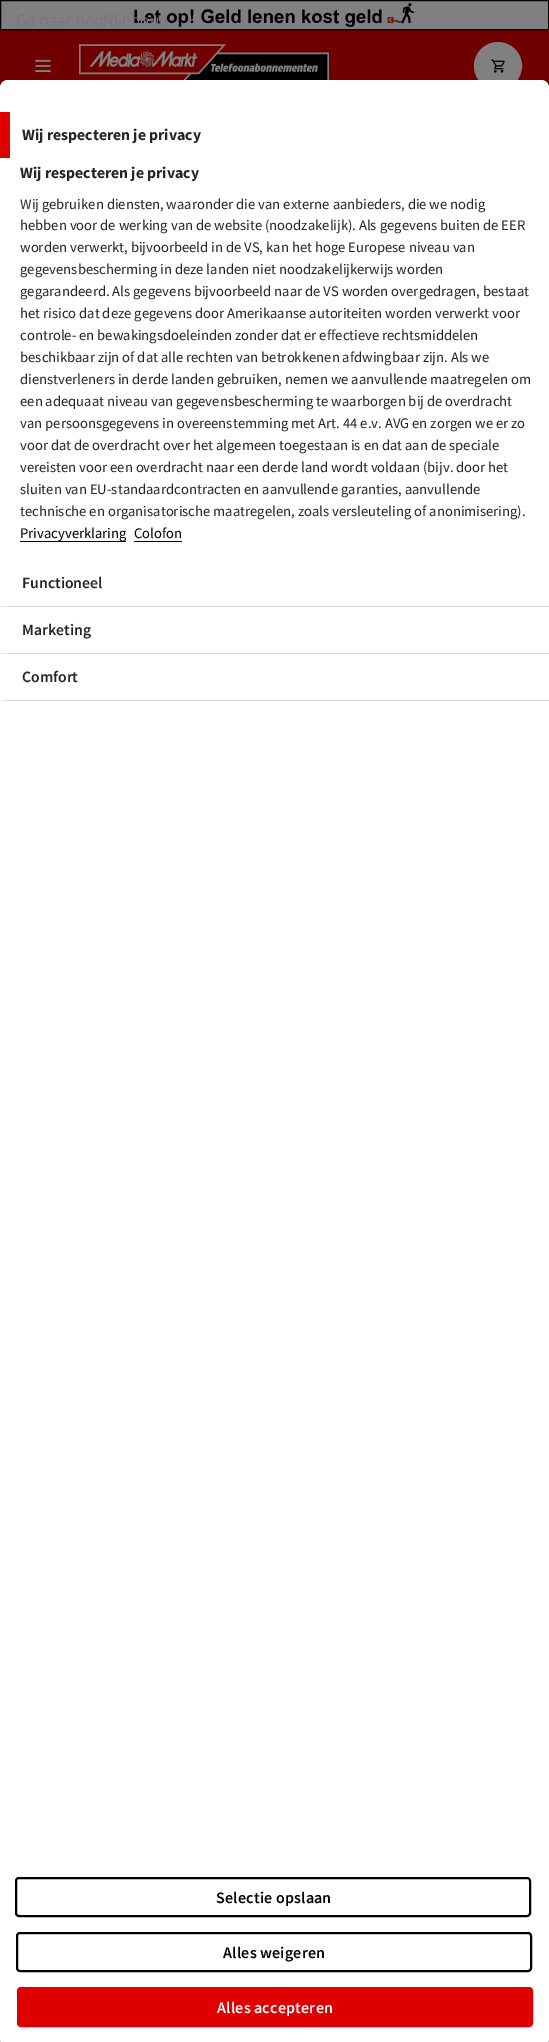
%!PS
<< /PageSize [549 2042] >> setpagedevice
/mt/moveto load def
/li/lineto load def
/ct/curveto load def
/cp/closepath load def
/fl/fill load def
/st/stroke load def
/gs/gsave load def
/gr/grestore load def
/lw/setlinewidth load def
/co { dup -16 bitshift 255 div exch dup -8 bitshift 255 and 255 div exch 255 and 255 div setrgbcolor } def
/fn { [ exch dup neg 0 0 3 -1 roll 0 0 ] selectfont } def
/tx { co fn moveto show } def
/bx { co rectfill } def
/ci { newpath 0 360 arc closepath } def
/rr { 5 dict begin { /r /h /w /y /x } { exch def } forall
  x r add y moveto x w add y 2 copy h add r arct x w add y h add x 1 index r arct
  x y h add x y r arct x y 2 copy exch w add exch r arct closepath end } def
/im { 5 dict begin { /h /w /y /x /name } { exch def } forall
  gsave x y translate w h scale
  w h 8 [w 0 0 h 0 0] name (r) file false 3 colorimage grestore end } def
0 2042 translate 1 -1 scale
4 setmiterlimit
0 0 549 2042 16#808080 bx
0 30 549 58 16#700000 bx
(media/1.raw) 134 3 281 24 im
16#000000 co
.5 .5 548 29 rectstroke
(media/2.raw) 35 59 16 14 im
(media/3.raw) 79 44 250 36 im
16#808080 co
498 66 23 ci gs fl gr
2 lw
st
(media/4.raw) 491 59 14 14 im
16#FFFFFF co
8 80 mt 541 80 li 545.5 80 549 83.5 549 88 ct 549 2040 li 549 2041 548 2042 547 2042 ct 2 2042 li 1 2042 0 2041 0 2040 ct 0 88 li 0 83.5 3.5 80 8 80 ct cp fl
0 112 10 46 16#DF0000 bx
20 541 106 1 16#000000 bx
134 541 48 1 16#000000 bx
16#D7D7D7 co
549 607 mt 0 607 li 10 606 li 549 606 li cp fl
549 654 mt 0 654 li 10 653 li 549 653 li cp fl
549 701 mt 0 701 li 10 700 li 549 700 li cp fl
16#000000 co
16 1878 514 38 3 rr st
17 1933 514 38 3 rr st
16#DF0000 co
18 1988 514 38 3 rr gs fl gr
st
(Ga naar hoofdinhoud) 16 26 /NotoSansDisplay-Regular 16 16#777777 tx
(Wij respecteren je privacy) 22 140 /SourceSansPro-Bold 15.75 16#272422 tx
(Wij respecteren je privacy) 20 178 /SourceSansPro-Bold 15.75 16#272422 tx
(Wij gebruiken diensten, waaronder die van externe aanbieders, die we nodig) 20 209 /SourceSansPro-Regular 14.65 16#272422 tx
(hebben voor de werking van de website \(noodzakelijk\). Als gegevens buiten de EER) 20 230 /SourceSansPro-Regular 14.65 16#272422 tx
(worden verwerkt, bijvoorbeeld in de VS, kan het hoge Europese niveau van) 20 252 /SourceSansPro-Regular 14.65 16#272422 tx
(gegevensbescherming in deze landen niet noodzakelijkerwijs worden) 20 274 /SourceSansPro-Regular 14.65 16#272422 tx
(gegarandeerd. Als gegevens bijvoorbeeld naar de VS worden overgedragen, bestaat) 20 296 /SourceSansPro-Regular 14.65 16#272422 tx
(het risico dat deze gegevens door Amerikaanse autoriteiten worden verwerkt voor) 20 318 /SourceSansPro-Regular 14.65 16#272422 tx
(controle- en bewakingsdoeleinden zonder dat er effectieve rechtsmiddelen) 20 340 /SourceSansPro-Regular 14.65 16#272422 tx
(beschikbaar zijn of dat alle rechten van betrokkenen afdwingbaar zijn. Als we) 20 362 /SourceSansPro-Regular 14.65 16#272422 tx
(dienstverleners in derde landen gebruiken, nemen we aanvullende maatregelen om) 20 384 /SourceSansPro-Regular 14.65 16#272422 tx
(een adequaat niveau van gegevensbescherming te waarborgen bij de overdracht) 20 406 /SourceSansPro-Regular 14.65 16#272422 tx
(van persoonsgegevens in overeenstemming met Art. 44 e.v. AVG en zorgen we er zo) 20 428 /SourceSansPro-Regular 14.65 16#272422 tx
(voor dat de overdracht over het algemeen toegestaan is en dat aan de speciale) 20 450 /SourceSansPro-Regular 14.65 16#272422 tx
(vereisten voor een overdracht naar een derde land wordt voldaan \(bijv. door het) 20 472 /SourceSansPro-Regular 14.65 16#272422 tx
(sluiten van EU-standaardcontracten en aanvullende garanties, aanvullende) 20 494 /SourceSansPro-Regular 14.65 16#272422 tx
(technische en organisatorische maatregelen, zoals versleuteling of anonimisering\).) 20 516 /SourceSansPro-Regular 14.65 16#272422 tx
(Privacyverklaring) 20 538 /SourceSansPro-Regular 14.65 16#000000 tx
(Colofon) 134 538 /SourceSansPro-Regular 14.65 16#000000 tx
(Functioneel) 22 588 /SourceSansPro-SemiBold 15.75 16#272422 tx
(Marketing) 22 635 /SourceSansPro-SemiBold 15.75 16#272422 tx
(Comfort) 22 682 /SourceSansPro-SemiBold 15.75 16#272422 tx
/SourceSansPro-SemiBold 16 fn
16#000000 co
216 1903 mt .2 0 (Selectie opslaan) ashow
223 1958 mt .2 0 (Alles weigeren) ashow
16#FFFFFF co
217 2013 mt .2 0 (Alles accepteren) ashow
showpage
